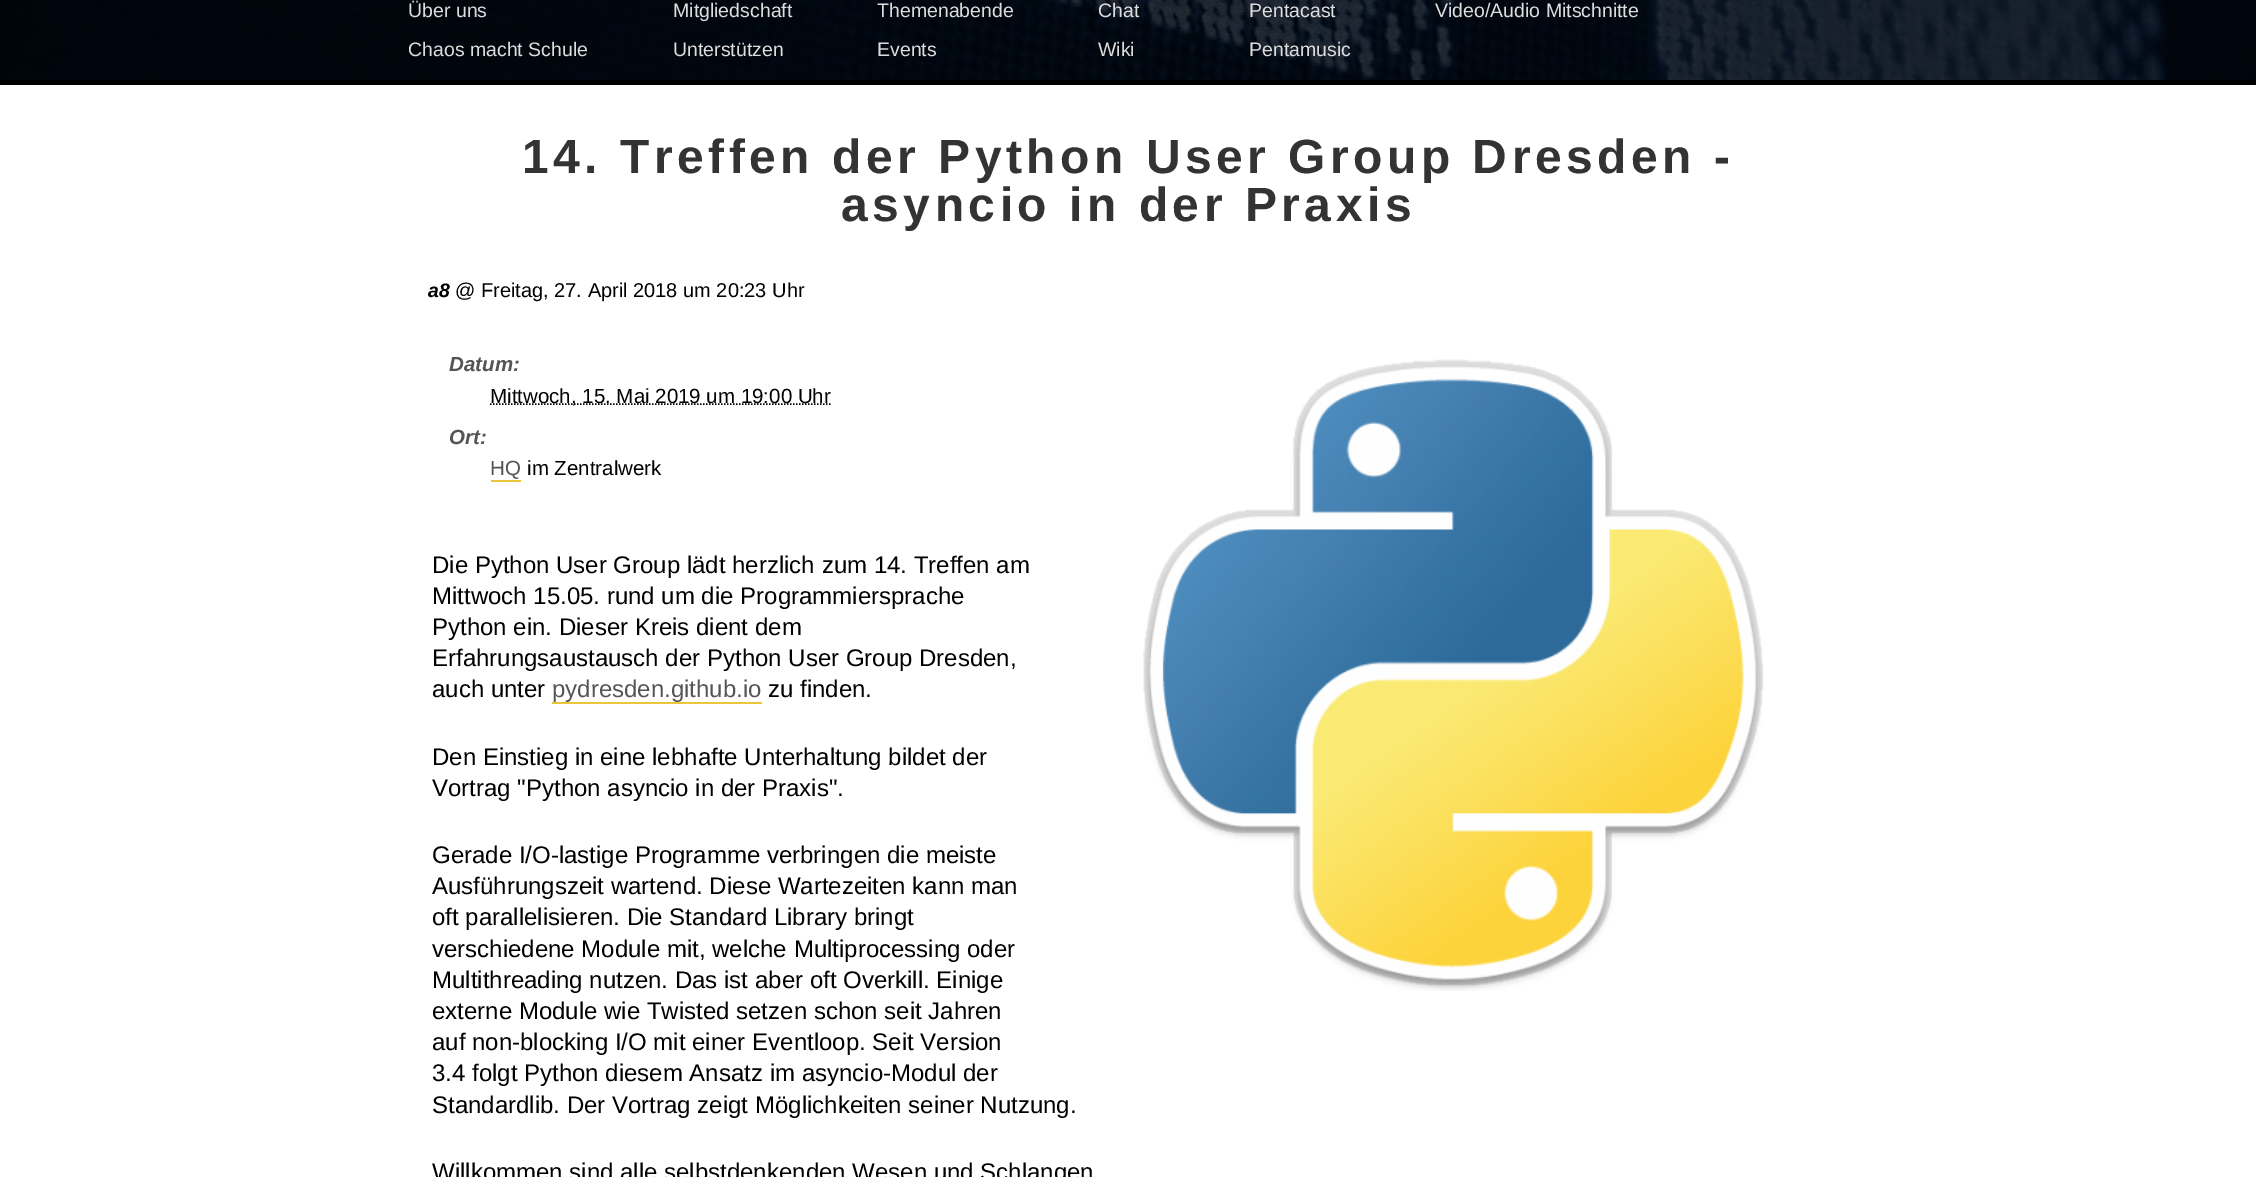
%!PS
<< /PageSize [2256 1177] >> setpagedevice
/mt/moveto load def
/li/lineto load def
/st/stroke load def
/lw/setlinewidth load def
/co { dup -16 bitshift 255 div exch dup -8 bitshift 255 and 255 div exch 255 and 255 div setrgbcolor } def
/fn { [ exch dup neg 0 0 3 -1 roll 0 0 ] selectfont } def
/tx { co fn moveto show } def
/bx { co rectfill } def
/im { 5 dict begin { /h /w /y /x /name } { exch def } forall
  gsave x y translate w h scale
  w h 8 [w 0 0 h 0 0] name (r) file false 3 colorimage grestore end } def
0 1177 translate 1 -1 scale
4 setmiterlimit
0 0 2256 1177 16#FFFFFF bx
(media/1.raw) 0 0 2256 80 im
0 80 2256 5 16#000000 bx
1.5 lw
[1.5 1.5] 0 setdash
490 404 mt 830.5 404 li st
491 480 30 2 16#EBC63C bx
(media/2.raw) 1143 359 621 632 im
552 702 210 2 16#EBC63C bx
(Über uns) 408 17 /LiberationSans-Regular 19.5 16#DDDDDD tx
(Chaos macht Schule) 408 56 /LiberationSans-Regular 19.5 16#DDDDDD tx
(Mitgliedschaft) 673 17 /LiberationSans-Regular 19.5 16#DDDDDD tx
(Unterstützen) 673 56 /LiberationSans-Regular 19.5 16#DDDDDD tx
(Themenabende) 877 17 /LiberationSans-Regular 19.5 16#DDDDDD tx
(Events) 877 56 /LiberationSans-Regular 19.5 16#DDDDDD tx
(Chat) 1098 17 /LiberationSans-Regular 19.5 16#DDDDDD tx
(Wiki) 1098 56 /LiberationSans-Regular 19.5 16#DDDDDD tx
(Pentacast) 1249 17 /LiberationSans-Regular 19.5 16#DDDDDD tx
(Pentamusic) 1249 56 /LiberationSans-Regular 19.5 16#DDDDDD tx
(Video/Audio Mitschnitte) 1435 17 /LiberationSans-Regular 19.5 16#DDDDDD tx
/LiberationSans-Bold 48 fn
16#333333 co
522 173 mt 4.5 0 (14. Treffen der Python User Group Dresden -) ashow
841 221 mt 4.5 0 (asyncio in der Praxis) ashow
(a8) 428 297 /LiberationSans-BoldItalic 19.5 16#000000 tx
(@ Freitag, 27. April 2018 um 20:23 Uhr) 455 297 /LiberationSans-Regular 20 16#000000 tx
(Datum:) 449 371 /LiberationSans-BoldItalic 20.5 16#555555 tx
(Mittwoch, 15. Mai 2019 um 19:00 Uhr) 490 403 /LiberationSans-Regular 20.5 16#000000 tx
(Ort:) 449 444 /LiberationSans-BoldItalic 20.5 16#555555 tx
(HQ) 490 475 /LiberationSans-Regular 20.5 16#555555 tx
(im Zentralwerk) 527 475 /LiberationSans-Regular 20.5 16#000000 tx
(Die Python User Group lädt herzlich zum 14. Treffen am) 432 573 /LiberationSans-Regular 24 16#000000 tx
(Mittwoch 15.05. rund um die Programmiersprache) 432 604 /LiberationSans-Regular 24 16#000000 tx
(Python ein. Dieser Kreis dient dem) 432 635 /LiberationSans-Regular 24 16#000000 tx
(Erfahrungsaustausch der Python User Group Dresden,) 432 666 /LiberationSans-Regular 24 16#000000 tx
(auch unter) 432 697 /LiberationSans-Regular 24 16#000000 tx
(pydresden.github.io) 552 697 /LiberationSans-Regular 24 16#555555 tx
(zu finden.) 768 697 /LiberationSans-Regular 24 16#000000 tx
(Den Einstieg in eine lebhafte Unterhaltung bildet der) 432 765 /LiberationSans-Regular 24 16#000000 tx
(Vortrag "Python asyncio in der Praxis".) 432 796 /LiberationSans-Regular 24 16#000000 tx
(Gerade I/O-lastige Programme verbringen die meiste) 432 863 /LiberationSans-Regular 24 16#000000 tx
(Ausführungszeit wartend. Diese Wartezeiten kann man) 432 894 /LiberationSans-Regular 24 16#000000 tx
(oft parallelisieren. Die Standard Library bringt) 432 925 /LiberationSans-Regular 24 16#000000 tx
(verschiedene Module mit, welche Multiprocessing oder) 432 957 /LiberationSans-Regular 24 16#000000 tx
(Multithreading nutzen. Das ist aber oft Overkill. Einige) 432 988 /LiberationSans-Regular 24 16#000000 tx
(externe Module wie Twisted setzen schon seit Jahren) 432 1019 /LiberationSans-Regular 24 16#000000 tx
(auf non-blocking I/O mit einer Eventloop. Seit Version) 432 1050 /LiberationSans-Regular 24 16#000000 tx
(3.4 folgt Python diesem Ansatz im asyncio-Modul der) 432 1081 /LiberationSans-Regular 24 16#000000 tx
(Standardlib. Der Vortrag zeigt Möglichkeiten seiner Nutzung.) 432 1113 /LiberationSans-Regular 24 16#000000 tx
(Willkommen sind alle selbstdenkenden Wesen und Schlangen) 432 1180 /LiberationSans-Regular 24 16#000000 tx
showpage
